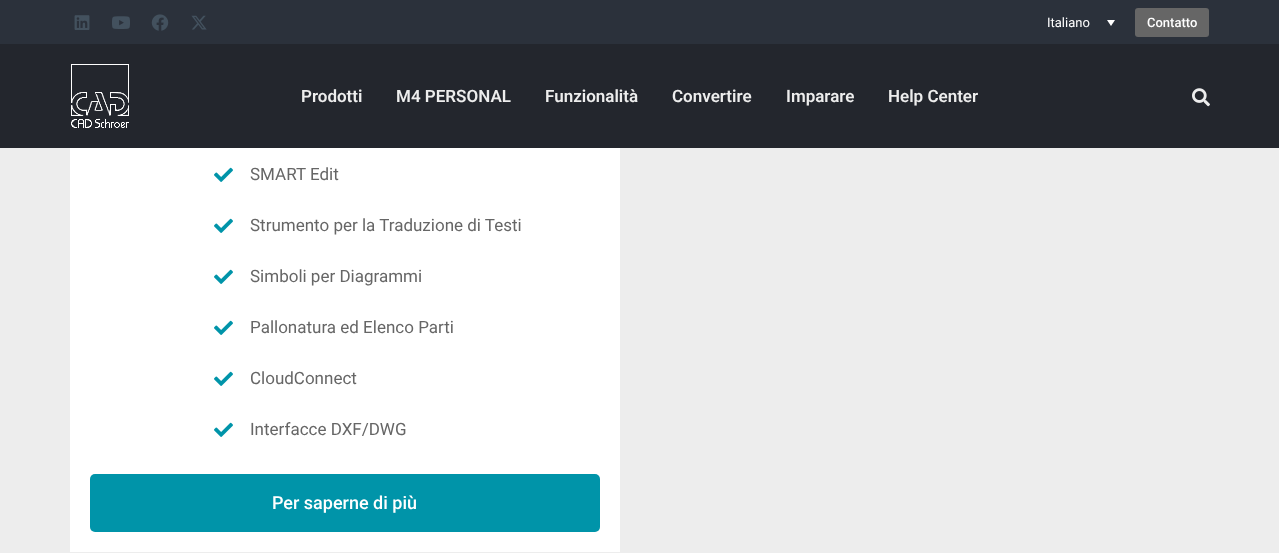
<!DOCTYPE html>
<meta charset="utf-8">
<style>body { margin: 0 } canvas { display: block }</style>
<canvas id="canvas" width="1279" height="553"></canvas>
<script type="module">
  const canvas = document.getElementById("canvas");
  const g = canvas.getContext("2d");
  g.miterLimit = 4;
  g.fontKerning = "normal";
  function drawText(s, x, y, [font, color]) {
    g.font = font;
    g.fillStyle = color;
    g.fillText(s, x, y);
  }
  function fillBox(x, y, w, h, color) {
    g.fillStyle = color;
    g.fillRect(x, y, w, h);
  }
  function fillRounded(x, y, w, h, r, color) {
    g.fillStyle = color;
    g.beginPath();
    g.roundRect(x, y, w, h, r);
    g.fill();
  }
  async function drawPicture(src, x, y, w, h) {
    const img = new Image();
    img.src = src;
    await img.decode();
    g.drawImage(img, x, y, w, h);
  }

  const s1 = ["13px Roboto", "#FFFFFF"];
  const s2 = ["500 13px Roboto", "#FFFFFF"];
  const s3 = ["600 17px Roboto", "#EDEDED"];
  const s4 = ["17px Roboto", "#666666"];
  const s5 = ["500 18px Roboto", "#FFFFFF"];

  fillBox(0, 0, 1279, 553, "#EDEDED");
  fillBox(0, 0, 1279, 44, "#2B313B");
  await drawPicture("pic1.png", 74, 15, 16, 15);
  await drawPicture("pic2.png", 112, 16, 18, 13);
  await drawPicture("pic3.png", 151, 14, 18, 17);
  await drawPicture("pic4.png", 191, 15, 16, 15);
  drawText("Italiano", 1047, 27, s1);
  g.beginPath();
  g.moveTo(1107, 20);
  g.lineTo(1115, 20);
  g.lineTo(1111, 26);
  g.closePath();
  g.fill();
  fillRounded(1135, 8, 74, 29, 3, "#666666");
  drawText("Contatto", 1147, 27, s2);
  fillBox(0, 44, 1279, 104, "#23262D");
  await drawPicture("pic5.png", 71, 64, 58, 64);
  drawText("Prodotti", 301, 102, s3);
  drawText("M4 PERSONAL", 396, 102, s3);
  drawText("Funzionalità", 545, 102, s3);
  drawText("Convertire", 672, 102, s3);
  drawText("Imparare", 786, 102, s3);
  drawText("Help Center", 888, 102, s3);
  await drawPicture("pic6.png", 1192, 88, 18, 19);
  fillBox(70, 148, 550, 404, "#FFFFFF");
  await drawPicture("pic7.png", 214, 167, 19, 15);
  drawText("SMART Edit", 250, 180, s4);
  await drawPicture("pic7.png", 214, 218, 19, 15);
  drawText("Strumento per la Traduzione di Testi", 250, 231, s4);
  await drawPicture("pic7.png", 214, 269, 19, 15);
  drawText("Simboli per Diagrammi", 250, 282, s4);
  await drawPicture("pic7.png", 214, 320, 19, 15);
  drawText("Pallonatura ed Elenco Parti", 250, 333, s4);
  await drawPicture("pic7.png", 214, 371, 19, 15);
  drawText("CloudConnect", 250, 384, s4);
  await drawPicture("pic7.png", 214, 422, 19, 15);
  drawText("Interfacce DXF/DWG", 250, 435, s4);
  fillRounded(90, 474, 510, 58, 5, "#0094A9");
  drawText("Per saperne di più", 272, 509, s5);
</script>
